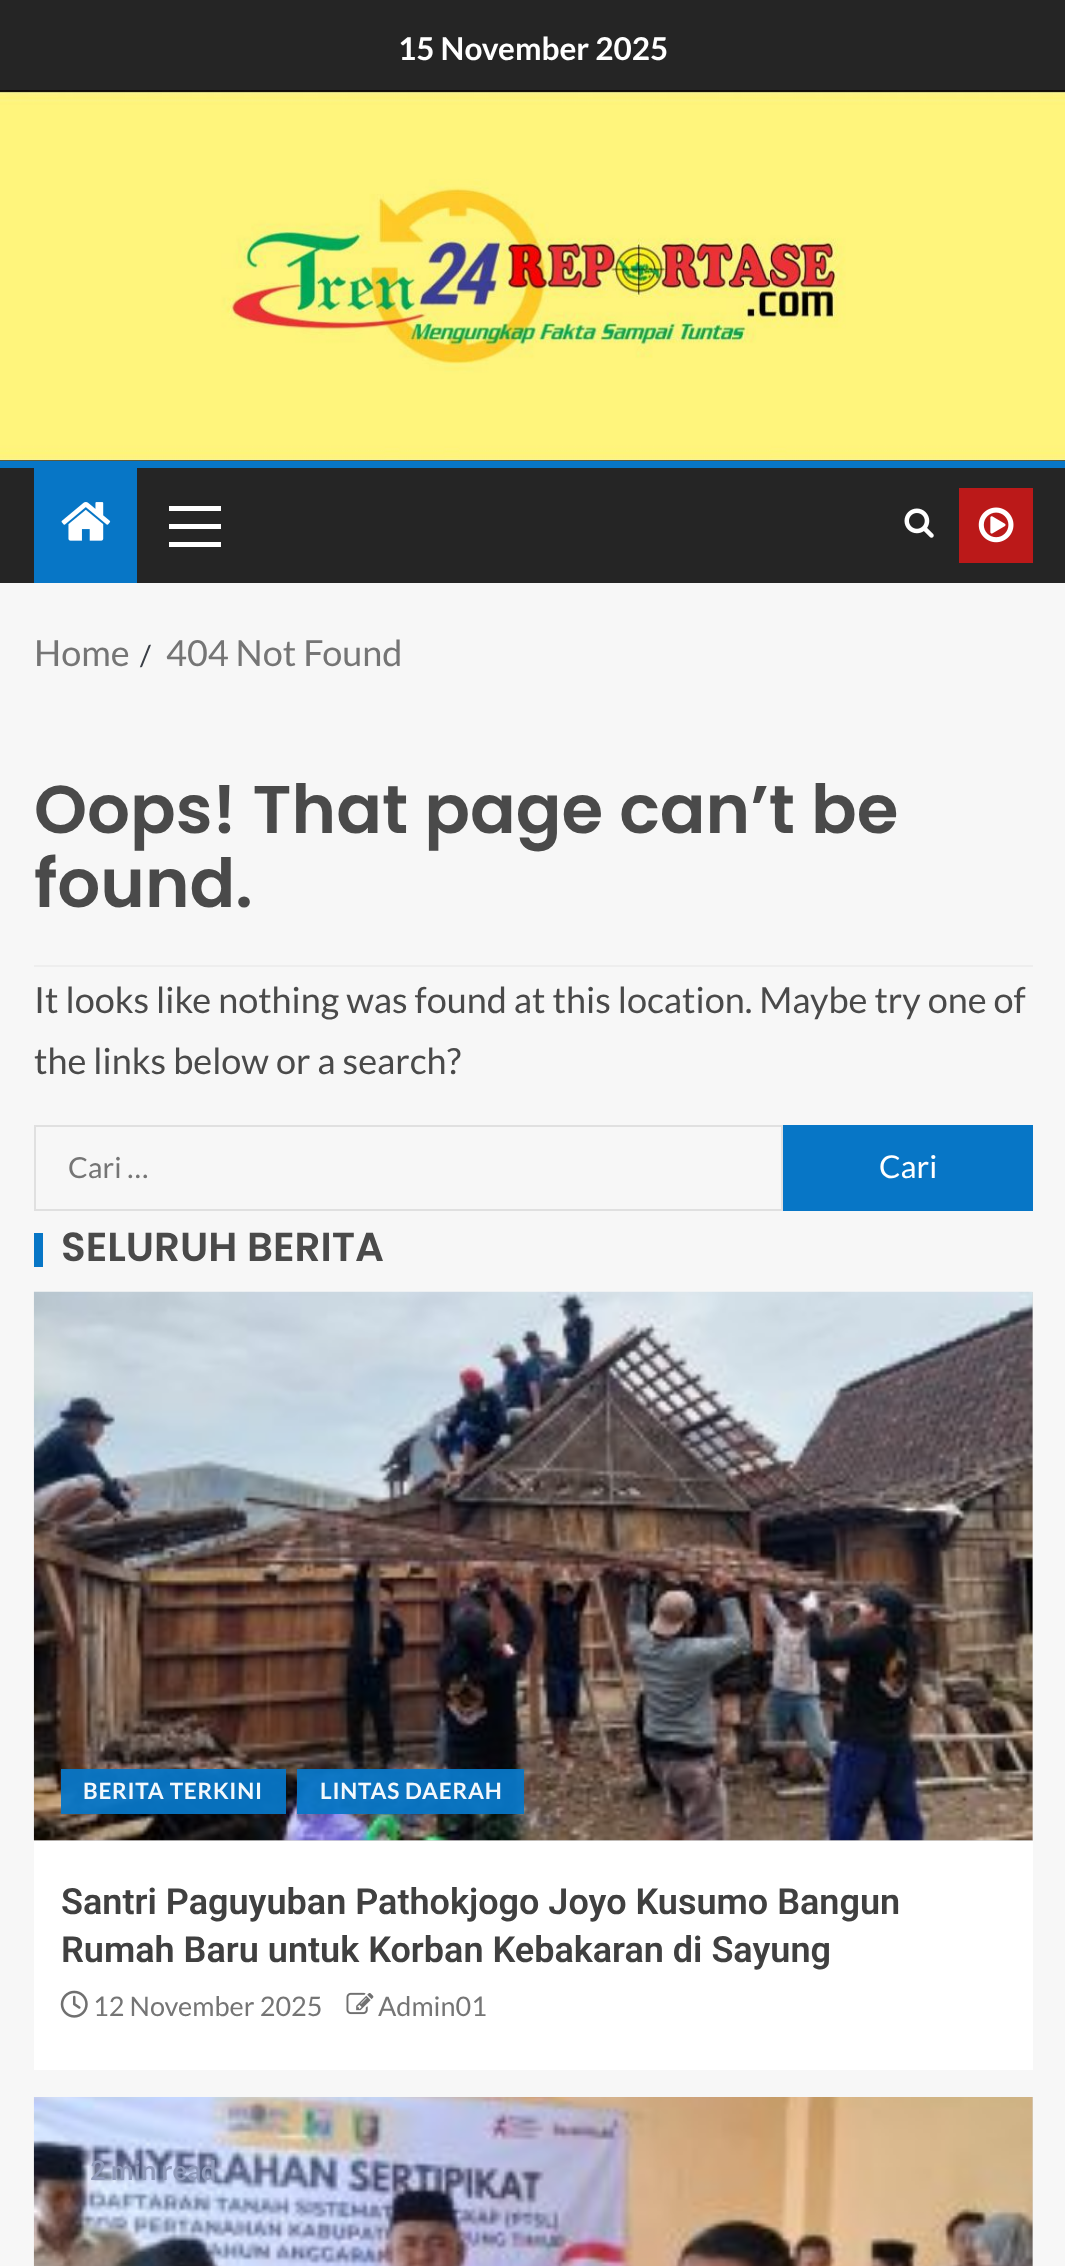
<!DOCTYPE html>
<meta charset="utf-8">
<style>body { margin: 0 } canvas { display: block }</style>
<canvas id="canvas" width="1065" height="2266"></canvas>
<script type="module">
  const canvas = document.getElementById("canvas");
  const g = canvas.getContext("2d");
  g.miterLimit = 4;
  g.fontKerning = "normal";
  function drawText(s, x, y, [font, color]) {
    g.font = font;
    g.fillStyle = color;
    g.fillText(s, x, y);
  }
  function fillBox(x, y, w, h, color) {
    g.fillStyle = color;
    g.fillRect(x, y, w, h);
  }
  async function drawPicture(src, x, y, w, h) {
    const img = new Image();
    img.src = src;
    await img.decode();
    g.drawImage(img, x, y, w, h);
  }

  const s1 = ["bold 31.5px Lato", "#FFFFFF"];
  const s2 = ["36px Lato", "#757575"];
  const s3 = ["29px Lato", "#393E46"];
  const s4 = ["600 67.5px Poppins", "#4A4A4A"];
  const s5 = ["36px Lato", "#4A4A4A"];
  const s6 = ["29px Lato", "#757575"];
  const s7 = ["31.5px Lato", "#FFFFFF"];
  const s8 = ["600 40.5px Poppins", "#4A4A4A"];
  const s9 = ["bold 22.5px Lato", "#F3F8FC"];
  const s10 = ["600 36px Roboto", "#404040"];
  const s11 = ["27px Lato", "#757575"];
  const s12 = ["bold 27px Lato", "#919BBA"];

  fillBox(0, 0, 1065, 2266, "#F7F7F7");
  fillBox(0, 0, 1065, 90, "#252525");
  drawText("15 November 2025", 398, 60, s1);
  await drawPicture("pic1.png", 0, 90, 1065, 371);
  fillBox(0, 468, 1065, 115, "#252525");
  fillBox(0, 461, 1065, 7, "#0776C6");
  fillBox(34, 468, 103, 115, "#0776C6");
  await drawPicture("pic2.png", 61, 502, 50, 39);
  fillBox(169, 524, 52, 5, "#FFFFFF");
  fillBox(169, 506, 52, 5, "#FFFFFF");
  fillBox(169, 542, 52, 5, "#FFFFFF");
  await drawPicture("pic3.png", 904, 508, 30, 30);
  fillBox(959, 488, 74, 75, "#BB1919");
  await drawPicture("pic4.png", 978, 507, 36, 36);
  drawText("Home", 34, 666, s2);
  drawText("/", 140, 666, s3);
  drawText("404 Not Found", 166, 666, s2);
  fillBox(34, 965, 999, 2, "#EEEEEE");
  drawText("Oops! That page can’t be", 34, 833, s4);
  drawText("found.", 34, 907, s4);
  drawText("It looks like nothing was found at this location. Maybe try one of", 34, 1013, s5);
  drawText("the links below or a search?", 34, 1074, s5);
  g.strokeStyle = "#E0E0E0";
  g.lineWidth = 2;
  g.strokeRect(35, 1126, 747, 84);
  drawText("Cari …", 68, 1178, s6);
  fillBox(783, 1125, 250, 86, "#0776C6");
  drawText("Cari", 879, 1178, s7);
  fillBox(34, 1233, 9, 34, "#0776C6");
  drawText("SELURUH BERITA", 61, 1261, s8);
  fillBox(34, 1292, 999, 549, "#DADADA");
  await drawPicture("pic5.png", 33, 1291, 1000, 550);
  fillBox(61, 1769, 225, 45, "rgba(7, 118, 198, 0.95)");
  g.letterSpacing = "0.75px";
  drawText("BERITA TERKINI", 83, 1799, s9);
  fillBox(297, 1769, 227, 45, "rgba(7, 118, 198, 0.95)");
  drawText("LINTAS DAERAH", 320, 1799, s9);
  fillBox(34, 1841, 999, 229, "#FFFFFF");
  g.letterSpacing = "0px";
  drawText("Santri Paguyuban Pathokjogo Joyo Kusumo Bangun", 61, 1914, s10);
  drawText("Rumah Baru untuk Korban Kebakaran di Sayung", 61, 1962, s10);
  await drawPicture("pic6.png", 60, 1990, 28, 28);
  drawText("12 November 2025", 93, 2016, s11);
  await drawPicture("pic7.png", 346, 1992, 28, 23);
  drawText("Admin01", 378, 2016, s11);
  fillBox(1032, 2097, 1, 169, "#DADADA");
  await drawPicture("pic8.png", 33, 2097, 1000, 169);
  drawText("2 min read", 90, 2180, s12);
</script>
